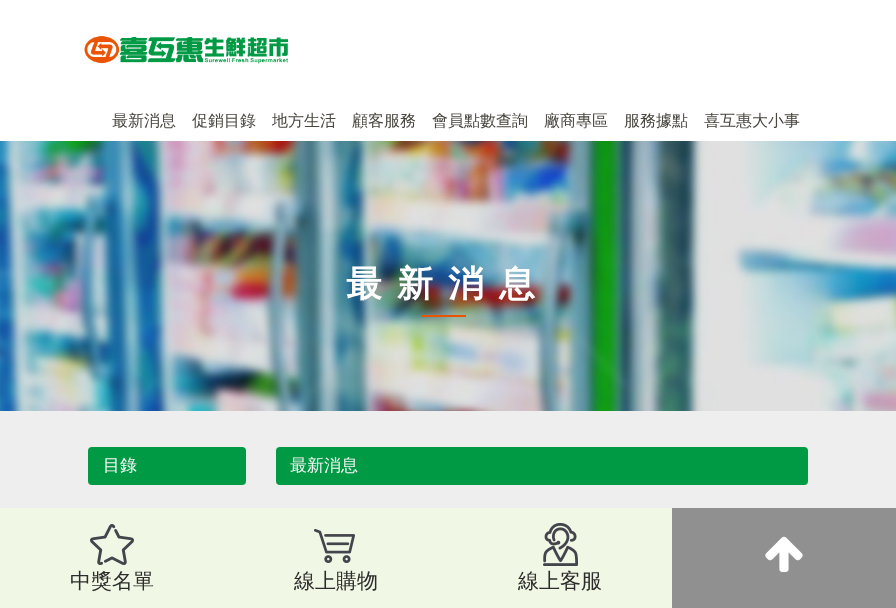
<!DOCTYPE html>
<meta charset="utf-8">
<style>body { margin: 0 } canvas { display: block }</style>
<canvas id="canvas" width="896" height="608"></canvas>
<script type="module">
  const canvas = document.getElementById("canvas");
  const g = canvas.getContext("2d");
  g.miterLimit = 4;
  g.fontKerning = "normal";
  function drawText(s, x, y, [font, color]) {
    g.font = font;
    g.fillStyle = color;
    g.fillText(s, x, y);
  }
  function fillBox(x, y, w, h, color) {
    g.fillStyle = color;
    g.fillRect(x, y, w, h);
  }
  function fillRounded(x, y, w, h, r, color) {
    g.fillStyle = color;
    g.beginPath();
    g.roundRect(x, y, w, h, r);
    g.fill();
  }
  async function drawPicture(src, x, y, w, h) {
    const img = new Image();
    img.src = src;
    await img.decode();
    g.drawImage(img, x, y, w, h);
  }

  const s1 = ["500 16px WenQuanYi Zen Hei", "#48463F"];
  const s2 = ["bold 36px WenQuanYi Zen Hei", "#FFFFFF"];
  const s3 = ["500 17px WenQuanYi Zen Hei", "#F8F8F8"];
  const s4 = ["500 21px WenQuanYi Zen Hei", "#2C2C2C"];

  fillBox(0, 0, 896, 608, "#FFFFFF");
  await drawPicture("pic1.png", 84, 36, 205, 28);
  drawText("最新消息", 112, 126, s1);
  drawText("促銷目錄", 192, 126, s1);
  drawText("地方生活", 272, 126, s1);
  drawText("顧客服務", 352, 126, s1);
  drawText("會員點數查詢", 432, 126, s1);
  drawText("廠商專區", 544, 126, s1);
  drawText("服務據點", 624, 126, s1);
  drawText("喜互惠大小事", 704, 126, s1);
  await drawPicture("pic2.png", 0, 141, 896, 270);
  g.letterSpacing = "15px";
  drawText("最新消息", 346, 296, s2);
  fillBox(421, 315, 45, 2, "#EA5404");
  fillBox(0, 411, 896, 97, "#EEEEEE");
  fillRounded(88, 447, 158, 38, 4, "#009944");
  g.letterSpacing = "0px";
  drawText("目錄", 103, 471, s3);
  fillRounded(276, 447, 532, 38, 4, "#009944");
  drawText("最新消息", 290, 471, s3);
  fillBox(0, 508, 672, 100, "#F0F7E4");
  await drawPicture("pic3.png", 90, 524, 44, 41);
  drawText("中獎名單", 70, 588, s4);
  await drawPicture("pic4.png", 314, 529, 41, 34);
  drawText("線上購物", 294, 588, s4);
  await drawPicture("pic5.png", 543, 523, 35, 43);
  drawText("線上客服", 518, 588, s4);
  fillBox(672, 508, 224, 100, "#909090");
  await drawPicture("pic6.png", 765, 536, 38, 37);
</script>
